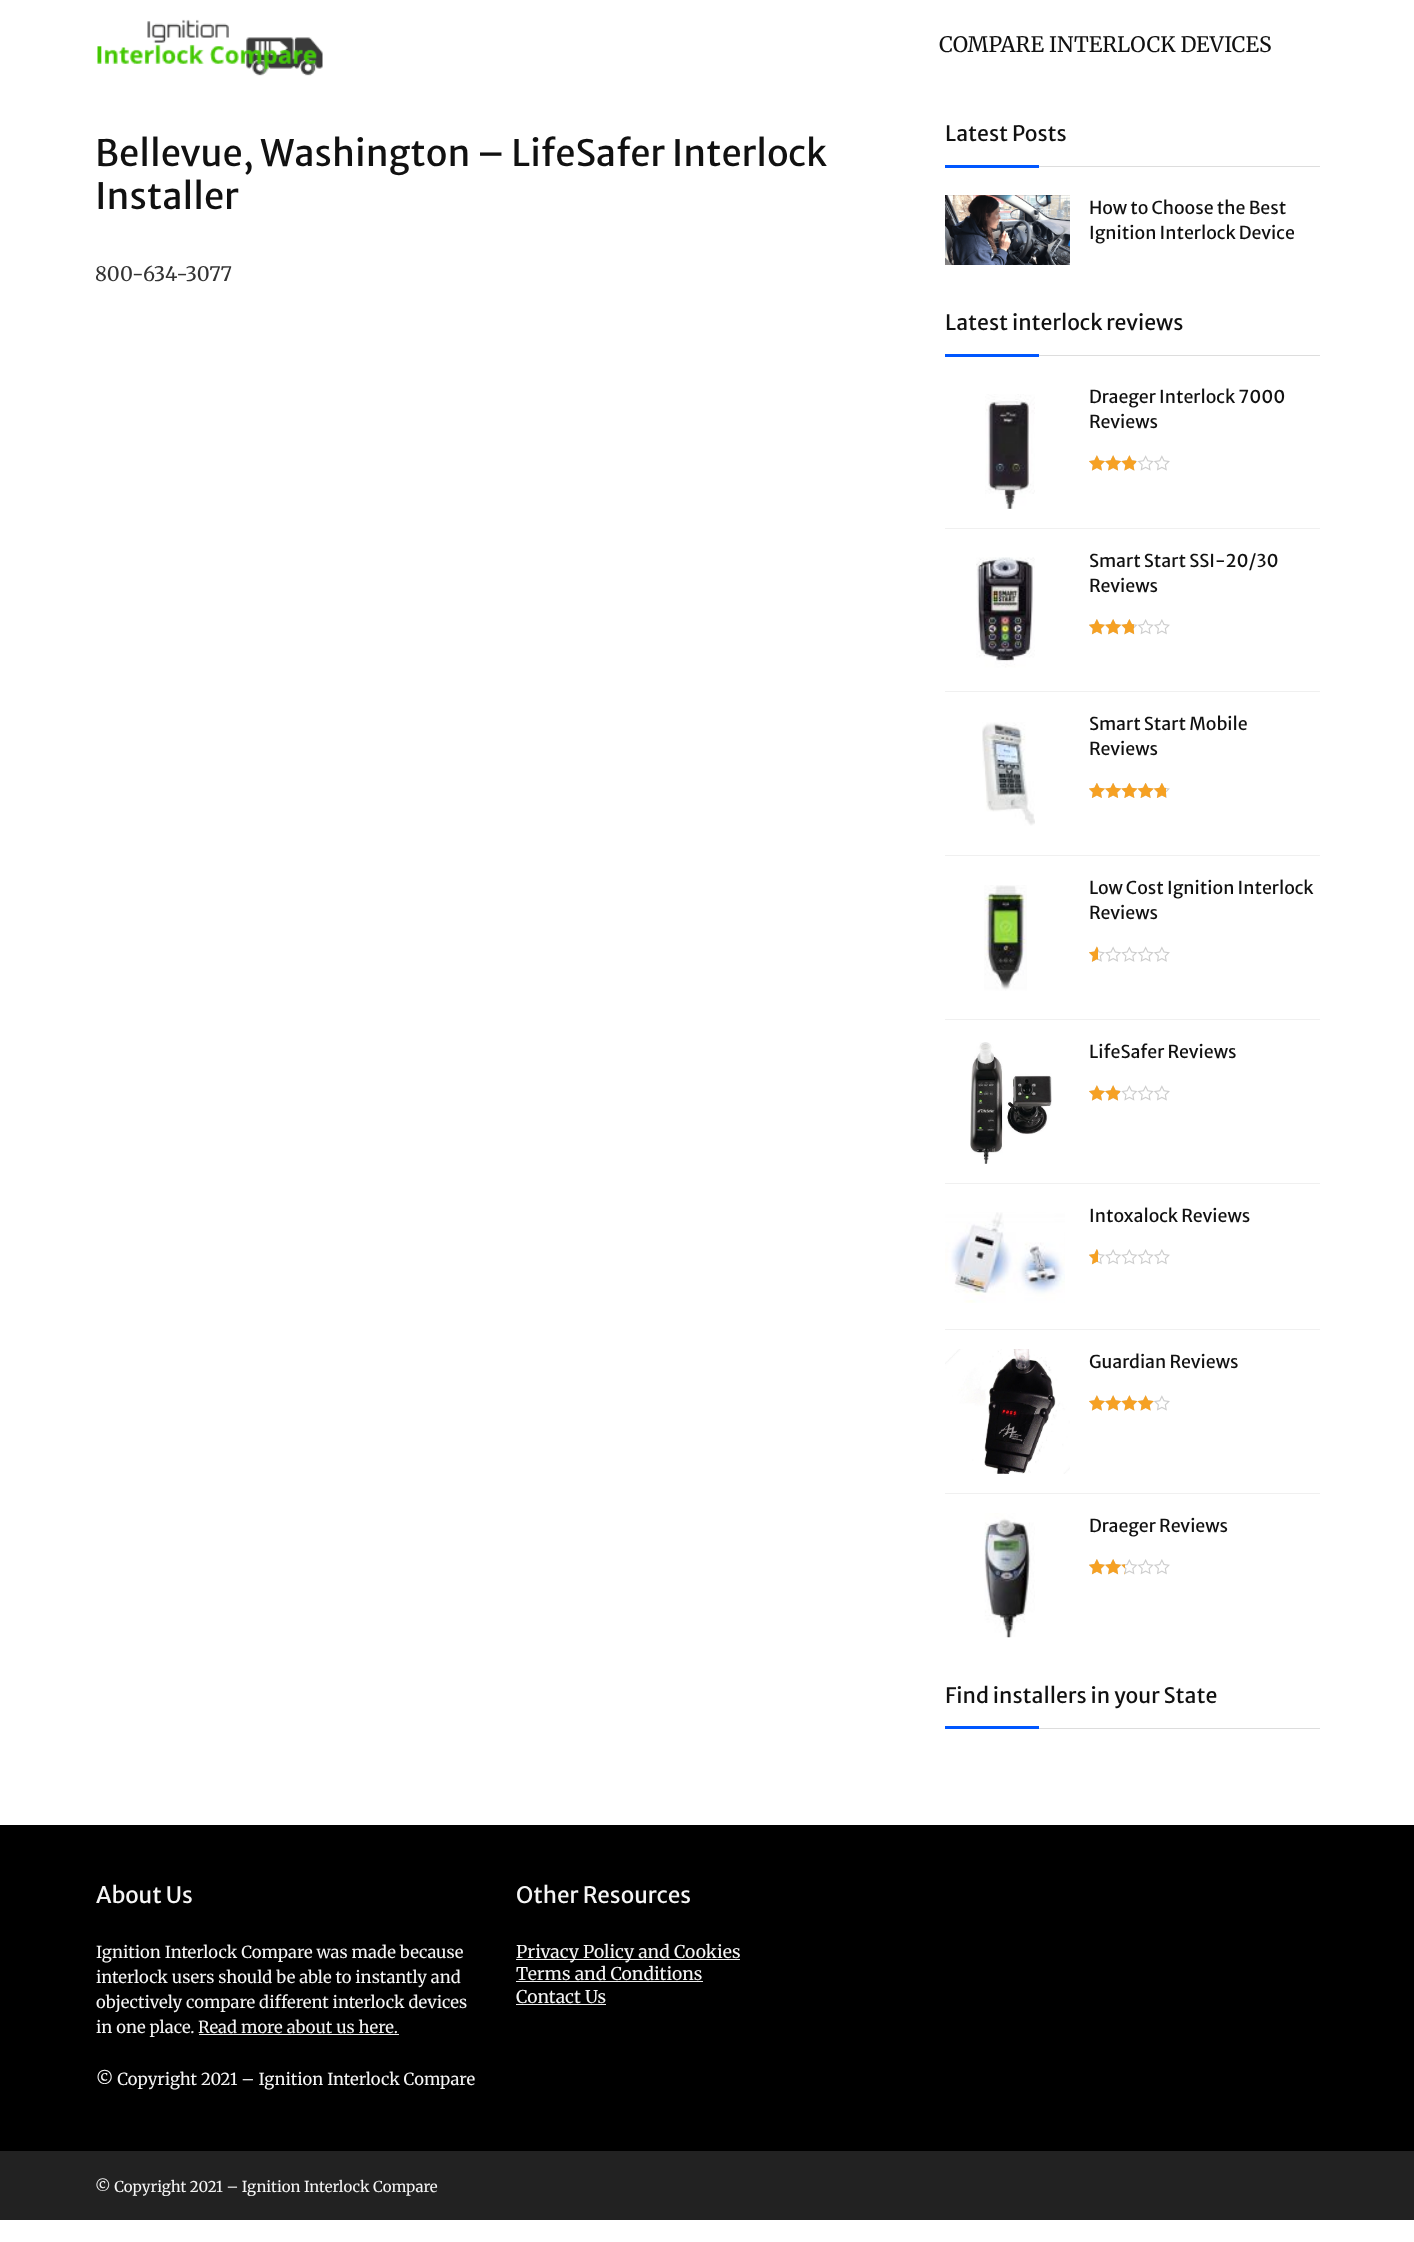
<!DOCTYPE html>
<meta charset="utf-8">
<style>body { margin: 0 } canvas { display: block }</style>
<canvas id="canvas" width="1414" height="2242"></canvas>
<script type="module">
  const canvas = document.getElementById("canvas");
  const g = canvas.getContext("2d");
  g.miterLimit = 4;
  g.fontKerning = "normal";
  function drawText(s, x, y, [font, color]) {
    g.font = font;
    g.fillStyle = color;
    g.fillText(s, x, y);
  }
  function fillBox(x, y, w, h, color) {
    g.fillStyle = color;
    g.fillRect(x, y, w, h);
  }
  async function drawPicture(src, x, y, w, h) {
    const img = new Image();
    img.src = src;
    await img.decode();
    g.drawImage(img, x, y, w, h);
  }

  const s1 = ["300 21.25px Merriweather", "#111111"];
  const s2 = ["36.25px Merriweather Sans", "#111111"];
  const s3 = ["300 20px Merriweather", "#333333"];
  const s4 = ["21.25px Merriweather Sans", "#111111"];
  const s5 = ["17.75px Merriweather Sans", "#111111"];
  const s6 = ["22.5px Merriweather Sans", "#F5F5F5"];
  const s7 = ["300 16.6px Merriweather", "#F5F5F5"];
  const s8 = ["300 17.5px Merriweather", "#F5F5F5"];
  const s9 = ["300 15px Merriweather", "#F5F5F5"];

  fillBox(0, 0, 1414, 2242, "#FFFFFF");
  await drawPicture("pic1.png", 97, 19, 226, 57);
  drawText("COMPARE INTERLOCK DEVICES", 939, 52, s1);
  drawText("Bellevue, Washington – LifeSafer Interlock", 95, 166, s2);
  drawText("Installer", 95, 209, s2);
  drawText("800-634-3077", 95, 281, s3);
  fillBox(1039, 166, 281, 1, "#DDDDDD");
  drawText("Latest Posts", 945, 141, s4);
  fillBox(945, 165, 94, 3, "#0057FF");
  await drawPicture("pic2.png", 945, 195, 125, 70);
  drawText("How to Choose the Best", 1089, 214, s5);
  drawText("Ignition Interlock Device", 1089, 239, s5);
  fillBox(1039, 355, 281, 1, "#DDDDDD");
  drawText("Latest interlock reviews", 945, 330, s4);
  fillBox(945, 354, 94, 3, "#0057FF");
  fillBox(945, 528, 375, 1, "#F0F0F0");
  await drawPicture("pic3.png", 985, 394, 50, 115);
  drawText("Draeger Interlock 7000", 1089, 403, s5);
  drawText("Reviews", 1089, 428, s5);
  await drawPicture("pic4.png", 1089, 455, 81, 16);
  await drawPicture("pic5.png", 1089, 455, 47, 16);
  fillBox(945, 691, 375, 1, "#F0F0F0");
  await drawPicture("pic6.png", 976, 557, 59, 111);
  drawText("Smart Start SSI-20/30", 1089, 567, s5);
  drawText("Reviews", 1089, 592, s5);
  await drawPicture("pic7.png", 1089, 619, 81, 16);
  await drawPicture("pic8.png", 1089, 619, 45, 16);
  fillBox(945, 855, 375, 1, "#F0F0F0");
  await drawPicture("pic9.png", 982, 722, 53, 104);
  drawText("Smart Start Mobile", 1089, 730, s5);
  drawText("Reviews", 1089, 755, s5);
  await drawPicture("pic10.png", 1089, 783, 81, 15);
  await drawPicture("pic11.png", 1089, 783, 77, 15);
  fillBox(945, 1019, 375, 1, "#F0F0F0");
  await drawPicture("pic12.png", 984, 885, 43, 106);
  drawText("Low Cost Ignition Interlock", 1089, 894, s5);
  drawText("Reviews", 1089, 919, s5);
  await drawPicture("pic13.png", 1089, 946, 81, 16);
  await drawPicture("pic14.png", 1089, 946, 9, 16);
  fillBox(945, 1183, 375, 1, "#F0F0F0");
  await drawPicture("pic15.png", 970, 1042, 82, 122);
  drawText("LifeSafer Reviews", 1089, 1058, s5);
  await drawPicture("pic4.png", 1089, 1085, 81, 16);
  await drawPicture("pic16.png", 1089, 1085, 31, 16);
  fillBox(945, 1329, 375, 1, "#F0F0F0");
  await drawPicture("pic17.png", 945, 1212, 120, 91);
  drawText("Intoxalock Reviews", 1089, 1222, s5);
  await drawPicture("pic7.png", 1089, 1249, 81, 16);
  await drawPicture("pic18.png", 1089, 1249, 9, 16);
  fillBox(945, 1493, 375, 1, "#F0F0F0");
  await drawPicture("pic19.png", 945, 1349, 125, 125);
  drawText("Guardian Reviews", 1089, 1368, s5);
  await drawPicture("pic4.png", 1089, 1395, 81, 16);
  await drawPicture("pic20.png", 1089, 1395, 65, 16);
  await drawPicture("pic21.png", 984, 1513, 51, 125);
  drawText("Draeger Reviews", 1089, 1532, s5);
  await drawPicture("pic7.png", 1089, 1559, 81, 16);
  await drawPicture("pic22.png", 1089, 1559, 36, 16);
  fillBox(1039, 1728, 281, 1, "#DDDDDD");
  drawText("Find installers in your State", 945, 1703, s4);
  fillBox(945, 1726, 94, 3, "#0057FF");
  fillBox(0, 1825, 1414, 326, "#000000");
  drawText("About Us", 96, 1903, s6);
  drawText("Ignition Interlock Compare was made because", 96, 1958, s7);
  drawText("interlock users should be able to instantly and", 96, 1983, s7);
  drawText("objectively compare different interlock devices", 96, 2008, s7);
  drawText("in one place.", 96, 2033, s7);
  drawText("Read more about us here.", 198, 2033, s7);
  fillBox(199, 2034, 200, 1, "#F1F1F1");
  drawText("© Copyright 2021 – Ignition Interlock Compare", 96, 2085, s7);
  drawText("Other Resources", 516, 1903, s6);
  fillBox(516, 1959, 224, 1, "#F1F1F1");
  drawText("Privacy Policy and Cookies", 516, 1958, s8);
  drawText("Terms and Conditions", 516, 1980, s8);
  fillBox(516, 1981, 187, 1, "#F1F1F1");
  drawText("Contact Us", 516, 2003, s8);
  fillBox(516, 2004, 90, 1, "#F1F1F1");
  fillBox(0, 2151, 1414, 69, "#222222");
  drawText("© Copyright 2021 – Ignition Interlock Compare", 95, 2192, s9);
</script>
